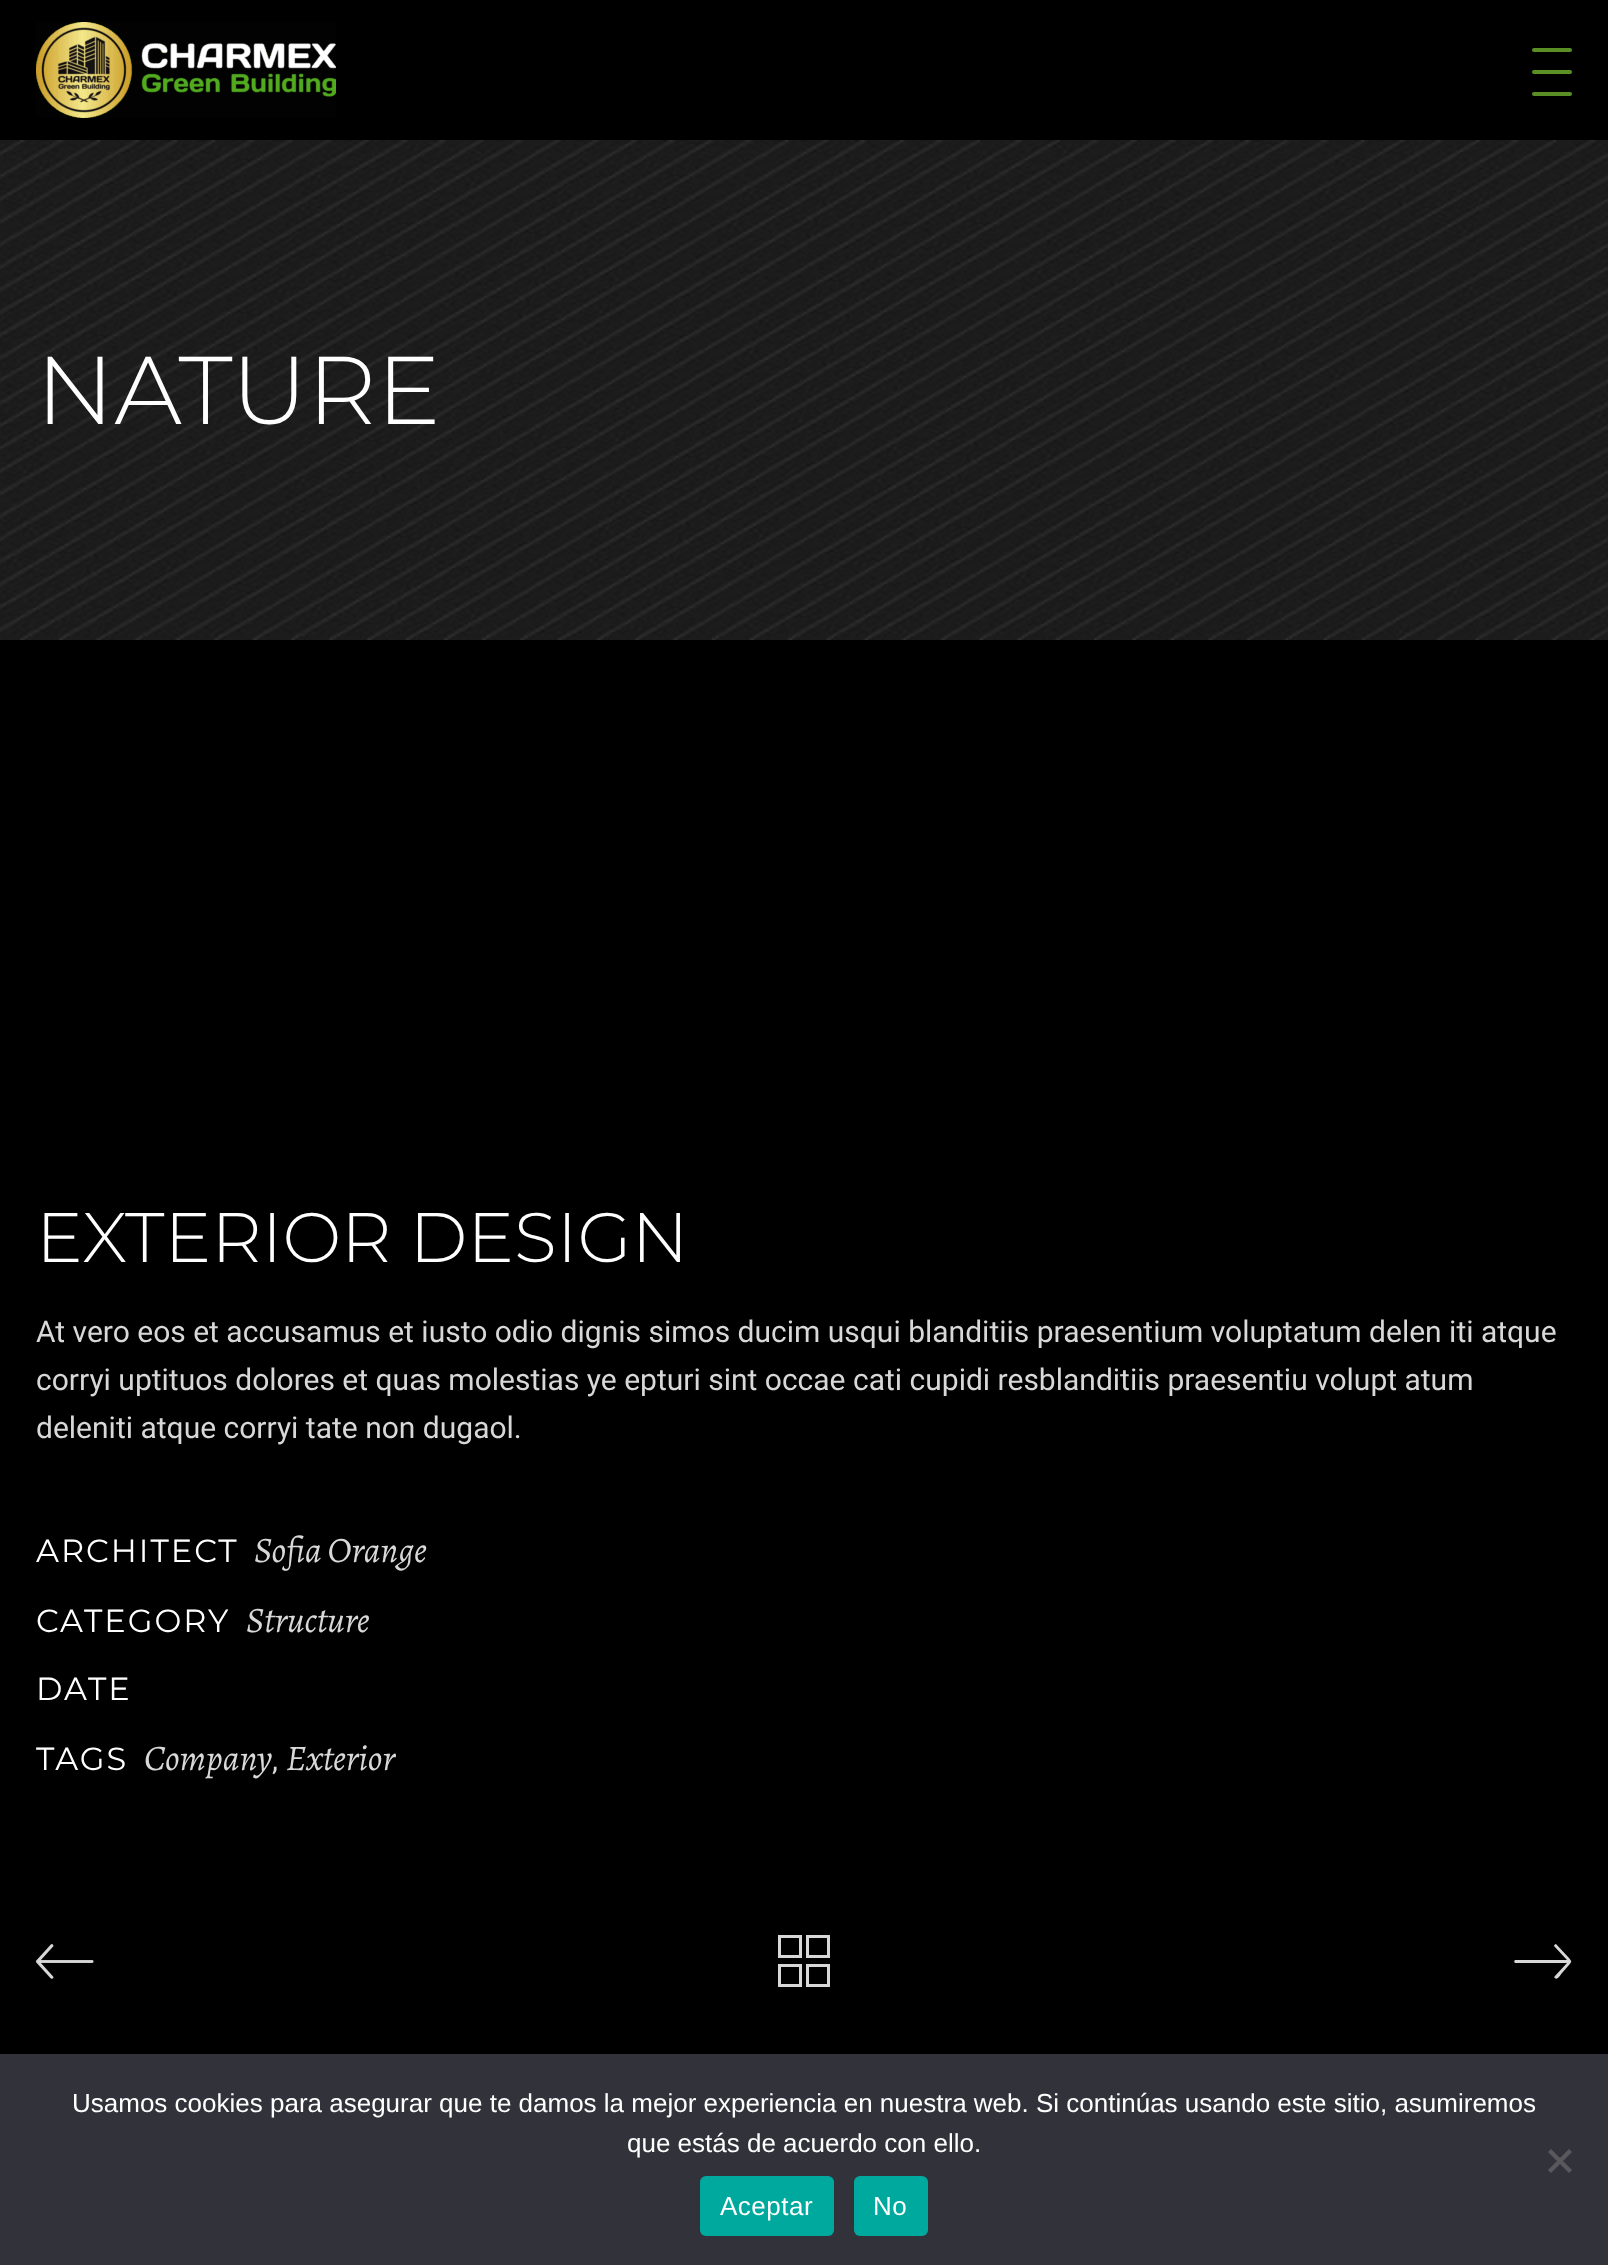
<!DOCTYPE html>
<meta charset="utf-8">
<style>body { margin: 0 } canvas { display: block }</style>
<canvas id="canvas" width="1608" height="2265"></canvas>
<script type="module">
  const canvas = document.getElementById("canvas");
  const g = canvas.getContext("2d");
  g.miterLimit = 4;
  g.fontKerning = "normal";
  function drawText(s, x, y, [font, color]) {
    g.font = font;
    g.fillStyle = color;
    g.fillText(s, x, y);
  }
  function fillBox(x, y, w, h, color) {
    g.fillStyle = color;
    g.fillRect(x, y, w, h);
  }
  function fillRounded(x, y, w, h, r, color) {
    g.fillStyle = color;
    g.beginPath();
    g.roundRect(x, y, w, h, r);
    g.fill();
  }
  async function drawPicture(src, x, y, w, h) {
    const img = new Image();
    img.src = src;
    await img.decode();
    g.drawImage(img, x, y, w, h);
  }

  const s1 = ["300 96px Montserrat", "#FFFFFF"];
  const s2 = ["300 70px Montserrat", "#FFFFFF"];
  const s3 = ["30px Roboto", "#D8D8D8"];
  const s4 = ["32px Montserrat", "#FFFFFF"];
  const s5 = ["italic 36px Alegreya", "#D8D8D8"];
  const s6 = ["26px Liberation Sans", "#FFFFFF"];

  fillBox(0, 0, 1608, 2265, "#000000");
  await drawPicture("pic1.png", 36, 22, 300, 96);
  fillRounded(1532, 48, 40, 4, 2, "#5A8F25");
  fillRounded(1532, 70, 40, 4, 2, "#5A8F25");
  fillRounded(1532, 92, 40, 4, 2, "#5A8F25");
  await drawPicture("pic2.png", 0, 140, 1608, 500);
  drawText("NATURE", 36, 424, s1);
  drawText("EXTERIOR DESIGN", 36, 1262, s2);
  drawText("At vero eos et accusamus et iusto odio dignis simos ducim usqui blanditiis praesentium voluptatum delen iti atque", 36, 1342, s3);
  drawText("corryi uptituos dolores et quas molestias ye epturi sint occae cati cupidi resblanditiis praesentiu volupt atum", 36, 1390, s3);
  drawText("deleniti atque corryi tate non dugaol.", 36, 1438, s3);
  g.letterSpacing = "2px";
  drawText("ARCHITECT", 36, 1562, s4);
  g.letterSpacing = "0px";
  drawText("Sofia Orange", 254, 1562, s5);
  g.letterSpacing = "2px";
  drawText("CATEGORY", 36, 1632, s4);
  g.letterSpacing = "0px";
  drawText("Structure", 246, 1632, s5);
  g.letterSpacing = "2px";
  drawText("DATE", 36, 1700, s4);
  drawText("TAGS", 36, 1770, s4);
  g.letterSpacing = "0px";
  drawText("Company", 144, 1770, s5);
  drawText(",", 272, 1770, s3);
  drawText("Exterior", 286, 1770, s5);
  await drawPicture("pic3.png", 36, 1944, 58, 35);
  g.strokeStyle = "#D8D8D8";
  g.lineWidth = 3;
  g.strokeRect(779.5, 1936.5, 21, 20);
  g.strokeRect(807.5, 1936.5, 21, 20);
  g.strokeRect(779.5, 1965.5, 21, 20);
  g.strokeRect(807.5, 1965.5, 21, 20);
  g.beginPath();
  g.moveTo(1555, 1978);
  g.bezierCurveTo(1554, 1978, 1554, 1977, 1555, 1976);
  g.lineTo(1567, 1963);
  g.lineTo(1515, 1963);
  g.bezierCurveTo(1514, 1962, 1514, 1961, 1515, 1960);
  g.lineTo(1567, 1960);
  g.lineTo(1554, 1946);
  g.bezierCurveTo(1554, 1945, 1555, 1944, 1556, 1944);
  g.lineTo(1569, 1958);
  g.bezierCurveTo(1572, 1962, 1572, 1961, 1569, 1965);
  g.lineTo(1562, 1973);
  g.bezierCurveTo(1561, 1974, 1557, 1981, 1555, 1978);
  g.closePath();
  g.fill();
  fillBox(0, 2054, 1608, 211, "#32323A");
  drawText("Usamos cookies para asegurar que te damos la mejor experiencia en nuestra web. Si continúas usando este sitio, asumiremos", 72, 2112, s6);
  drawText("que estás de acuerdo con ello.", 627, 2152, s6);
  g.fillStyle = "#59595D";
  g.beginPath();
  g.moveTo(1569, 2149);
  g.lineTo(1572, 2152);
  g.lineTo(1551, 2173);
  g.lineTo(1548, 2170);
  g.closePath();
  g.fill();
  g.beginPath();
  g.moveTo(1548, 2152);
  g.lineTo(1551, 2149);
  g.lineTo(1572, 2170);
  g.lineTo(1569, 2173);
  g.closePath();
  g.fill();
  fillRounded(700, 2176, 134, 60, 6, "#00A99D");
  g.letterSpacing = "0.5px";
  drawText("Aceptar", 720, 2215, s6);
  fillRounded(854, 2176, 74, 60, 6, "#00A99D");
  drawText("No", 873, 2215, s6);
</script>
